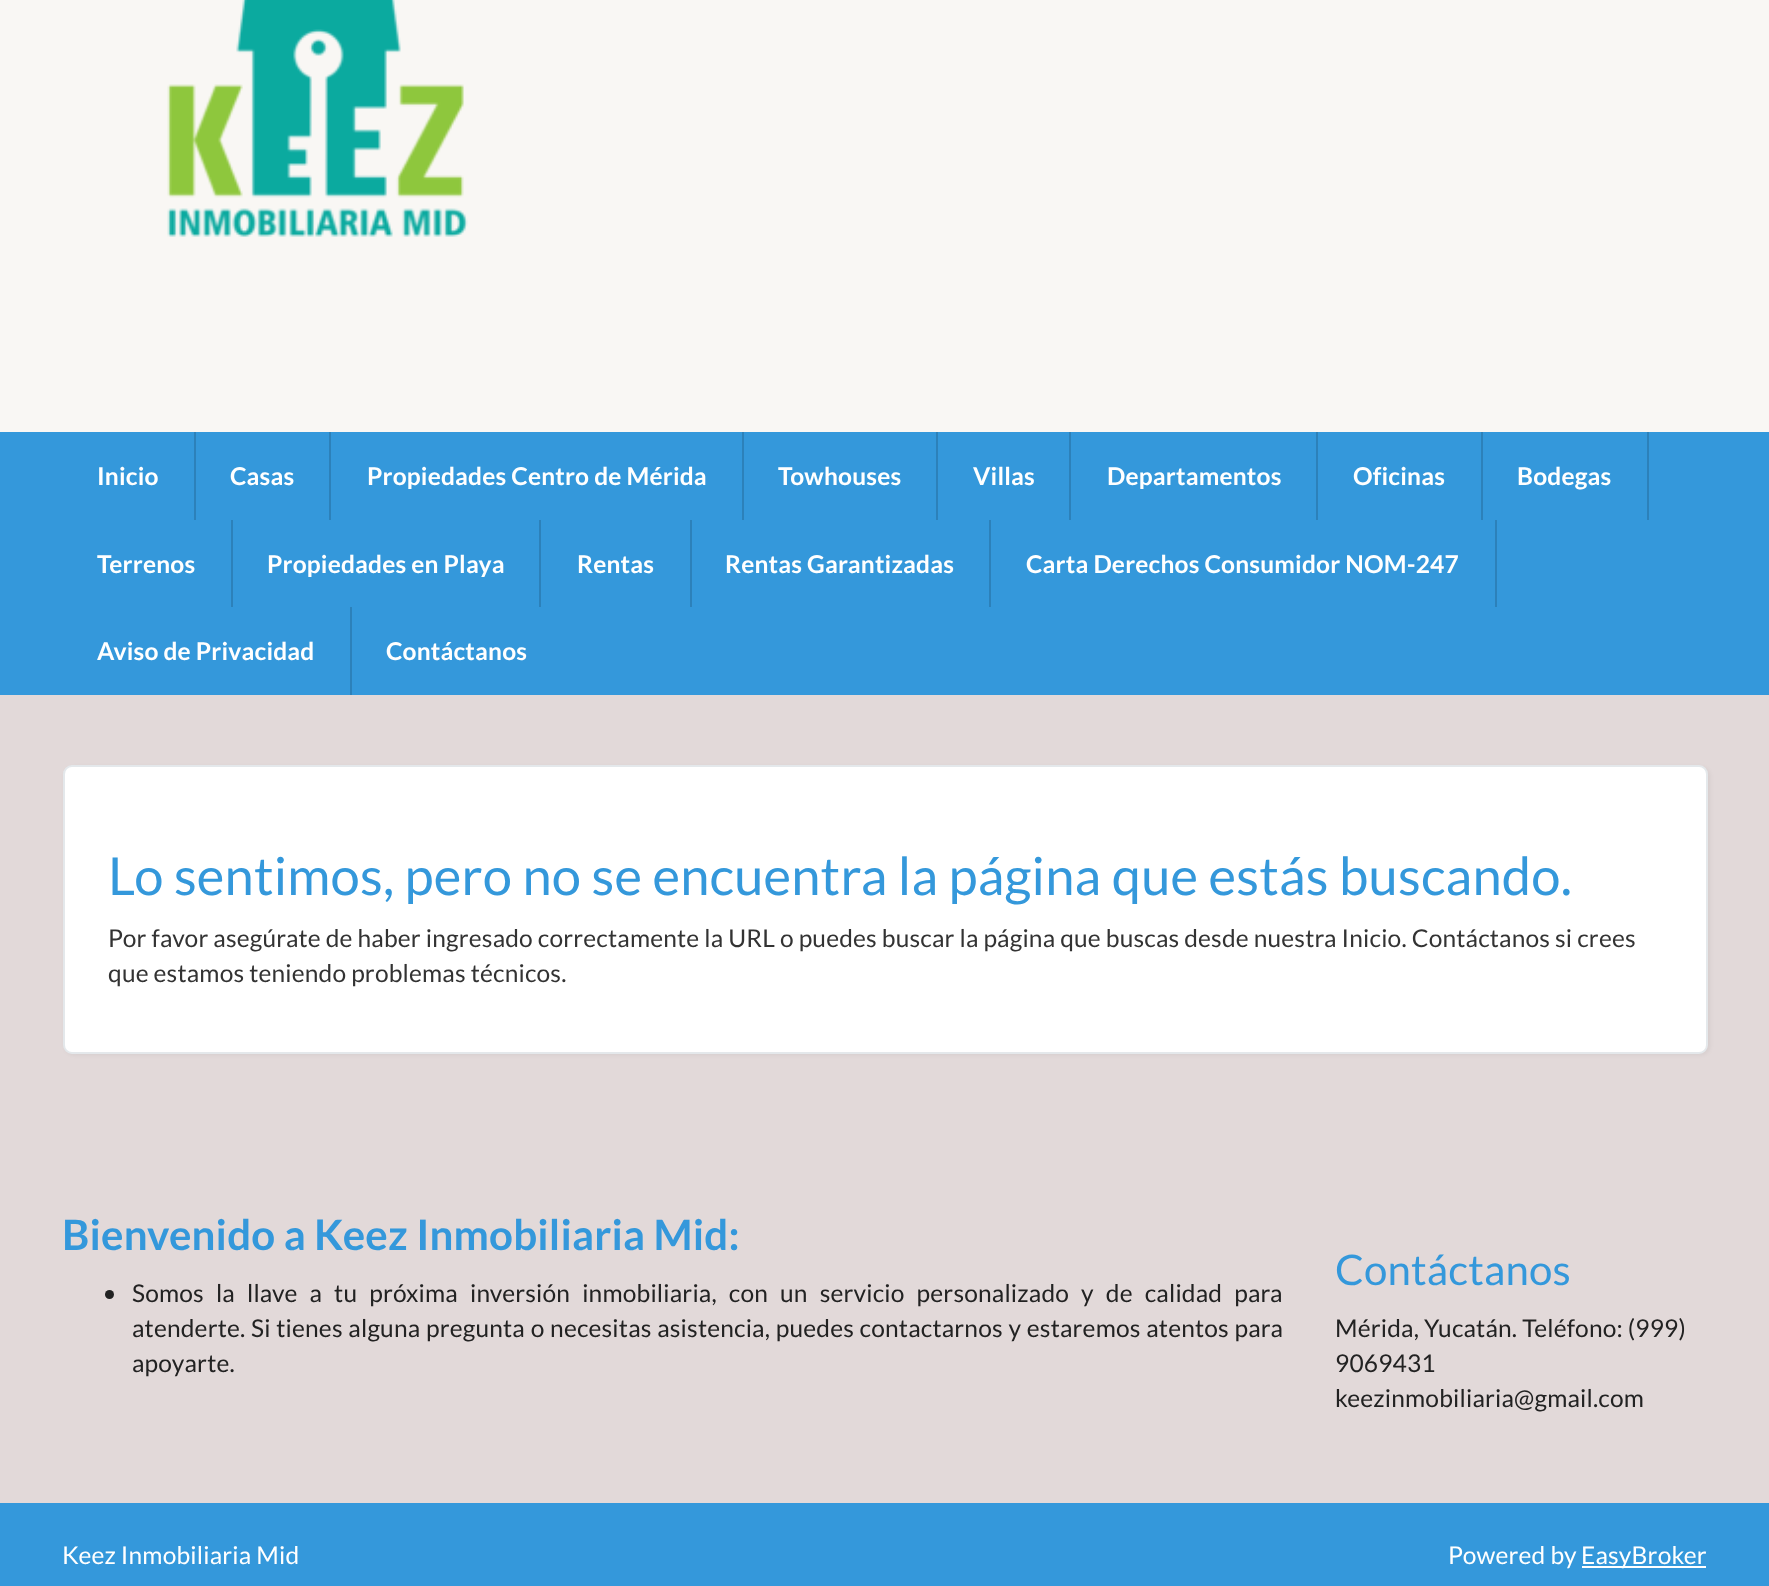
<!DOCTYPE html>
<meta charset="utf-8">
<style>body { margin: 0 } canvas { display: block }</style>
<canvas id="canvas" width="1769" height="1586"></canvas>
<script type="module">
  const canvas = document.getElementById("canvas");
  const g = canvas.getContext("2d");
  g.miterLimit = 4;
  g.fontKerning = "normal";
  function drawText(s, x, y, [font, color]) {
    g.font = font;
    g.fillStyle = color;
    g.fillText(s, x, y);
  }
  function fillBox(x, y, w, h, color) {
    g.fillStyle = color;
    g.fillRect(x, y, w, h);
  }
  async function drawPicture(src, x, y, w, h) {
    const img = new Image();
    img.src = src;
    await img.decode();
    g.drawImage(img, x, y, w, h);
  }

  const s1 = ["bold 24.5px Lato", "#FFFFFF"];
  const s2 = ["52.5px Lato", "#3498DB"];
  const s3 = ["24.5px Lato", "#333333"];
  const s4 = ["bold 42px Lato", "#3498DB"];
  const s5 = ["24.5px Lato", "#222222"];
  const s6 = ["42px Lato", "#3498DB"];
  const s7 = ["24.5px Lato", "#FFFFFF"];

  fillBox(0, 0, 1769, 1586, "#E2D9D9");
  fillBox(0, 0, 1769, 432, "#F9F7F4");
  await drawPicture("pic1.png", 167, 0, 301, 237);
  fillBox(0, 432, 1769, 263, "#3498DB");
  fillBox(194, 432, 2, 88, "#2C81BA");
  g.letterSpacing = "0.18px";
  drawText("Inicio", 97, 485, s1);
  fillBox(329, 432, 2, 88, "#2C81BA");
  drawText("Casas", 230, 485, s1);
  fillBox(742, 432, 2, 88, "#2C81BA");
  drawText("Propiedades Centro de Mérida", 367, 485, s1);
  fillBox(936, 432, 2, 88, "#2C81BA");
  drawText("Towhouses", 778, 485, s1);
  fillBox(1069, 432, 2, 88, "#2C81BA");
  drawText("Villas", 973, 485, s1);
  fillBox(1316, 432, 2, 88, "#2C81BA");
  drawText("Departamentos", 1107, 485, s1);
  fillBox(1481, 432, 2, 88, "#2C81BA");
  drawText("Oficinas", 1353, 485, s1);
  fillBox(1647, 432, 2, 88, "#2C81BA");
  drawText("Bodegas", 1517, 485, s1);
  fillBox(231, 520, 2, 87, "#2C81BA");
  drawText("Terrenos", 97, 573, s1);
  fillBox(539, 520, 2, 87, "#2C81BA");
  drawText("Propiedades en Playa", 267, 573, s1);
  fillBox(690, 520, 2, 87, "#2C81BA");
  drawText("Rentas", 577, 573, s1);
  fillBox(989, 520, 2, 87, "#2C81BA");
  drawText("Rentas Garantizadas", 725, 573, s1);
  fillBox(1495, 520, 2, 87, "#2C81BA");
  drawText("Carta Derechos Consumidor NOM-247", 1026, 573, s1);
  fillBox(350, 607, 2, 88, "#2C81BA");
  drawText("Aviso de Privacidad", 97, 660, s1);
  drawText("Contáctanos", 386, 660, s1);
  g.fillStyle = "rgba(0, 0, 0, 0.05)";
  g.filter = "blur(2px)";
  g.beginPath();
  g.roundRect(65, 767, 1645, 288, 9);
  g.fill();
  g.filter = "none";
  g.fillStyle = "#FFFFFF";
  g.beginPath();
  g.roundRect(64, 766, 1643, 287, 8);
  g.fill();
  g.strokeStyle = "#E4E8EB";
  g.lineWidth = 2;
  g.stroke();
  drawText("Lo sentimos, pero no se encuentra la página que estás buscando.", 108, 895, s2);
  drawText("Por favor asegúrate de haber ingresado correctamente la URL o puedes buscar la página que buscas desde nuestra Inicio. Contáctanos si crees", 108, 947, s3);
  drawText("que estamos teniendo problemas técnicos.", 108, 982, s3);
  drawText("Bienvenido a Keez Inmobiliaria Mid:", 62, 1250, s4);
  g.fillStyle = "#222222";
  g.beginPath();
  g.arc(109.5, 1294.5, 4.5, 0, Math.PI * 2);
  g.fill();
  g.wordSpacing = "7.1px";
  drawText("Somos la llave a tu próxima inversión inmobiliaria, con un servicio personalizado y de calidad para", 132, 1302, s5);
  g.wordSpacing = "0px";
  drawText("atenderte.", 132, 1337, s5);
  g.wordSpacing = "0.75px";
  drawText("Si tienes alguna pregunta o necesitas asistencia, puedes contactarnos y estaremos atentos para", 251, 1337, s5);
  g.wordSpacing = "0px";
  drawText("apoyarte.", 132, 1372, s5);
  drawText("Contáctanos", 1335, 1285, s6);
  drawText("Mérida, Yucatán. Teléfono: (999)", 1335, 1337, s5);
  drawText("9069431", 1335, 1372, s5);
  drawText("keezinmobiliaria@gmail.com", 1335, 1407, s5);
  fillBox(0, 1503, 1769, 83, "#3498DB");
  drawText("Keez Inmobiliaria Mid", 62, 1564, s7);
  drawText("Powered by", 1448, 1564, s7);
  fillBox(1582, 1566, 124, 2, "#FFFFFF");
  drawText("EasyBroker", 1581, 1564, s7);
</script>
